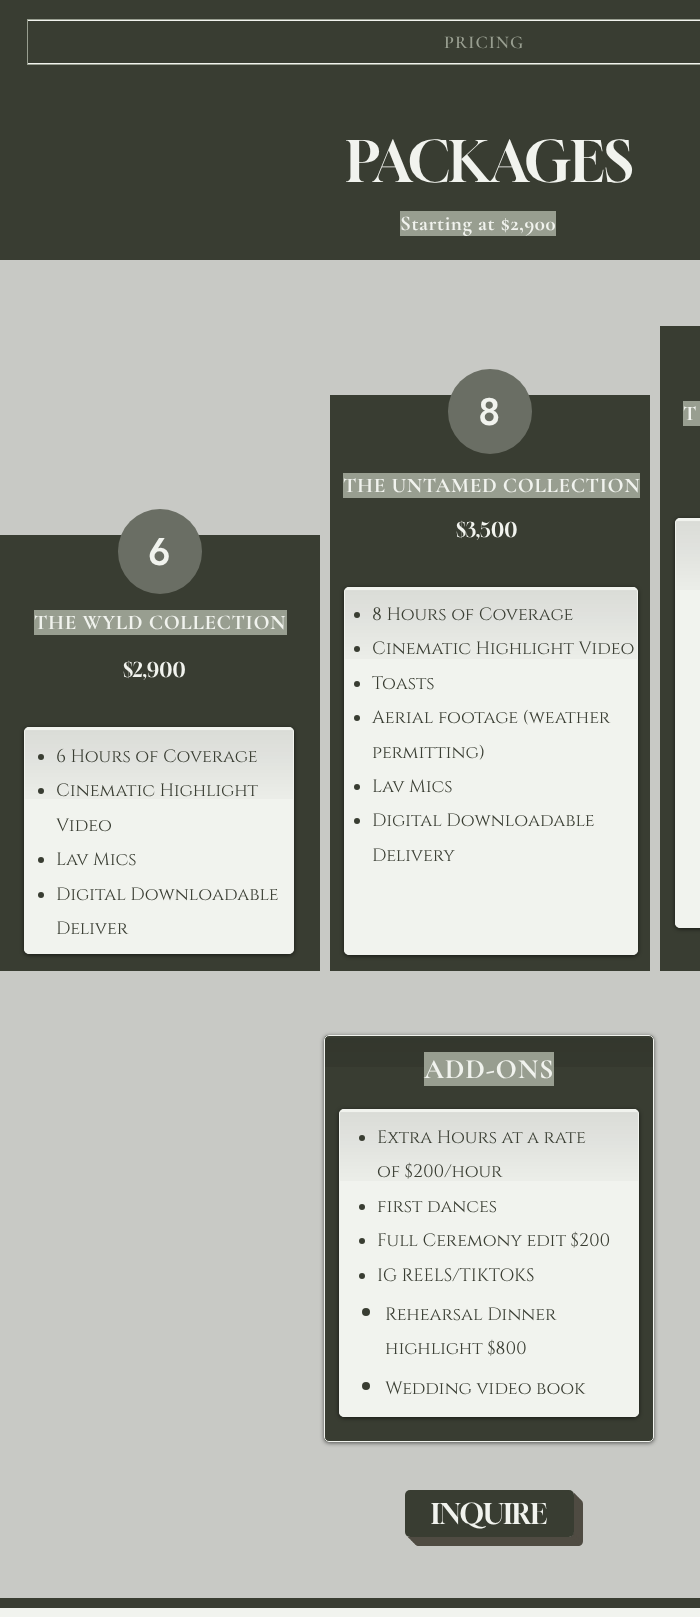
<!DOCTYPE html>
<meta charset="utf-8">
<style>body { margin: 0 } canvas { display: block }</style>
<canvas id="canvas" width="700" height="1617"></canvas>
<script type="module">
  const canvas = document.getElementById("canvas");
  const g = canvas.getContext("2d");
  g.miterLimit = 4;
  g.fontKerning = "normal";
  function drawText(s, x, y, [font, color]) {
    g.font = font;
    g.fillStyle = color;
    g.fillText(s, x, y);
  }
  function fillBox(x, y, w, h, color) {
    g.fillStyle = color;
    g.fillRect(x, y, w, h);
  }
  function fillRounded(x, y, w, h, r, color) {
    g.fillStyle = color;
    g.beginPath();
    g.roundRect(x, y, w, h, r);
    g.fill();
  }
  async function drawPicture(src, x, y, w, h) {
    const img = new Image();
    img.src = src;
    await img.decode();
    g.drawImage(img, x, y, w, h);
  }

  const s1 = ["600 18px Cormorant Garamond", "#989E90"];
  const s2 = ["56px Gloock", "#F1F3EE"];
  const s3 = ["bold 21px Cormorant Garamond", "#F1F3EE"];
  const s4 = ["900 38px 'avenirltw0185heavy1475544'", "#F1F3EE"];
  const s5 = ["20px Gloock", "#F1F3EE"];
  const s6 = ["18px Cinzel", "#393D32"];
  const s7 = ["bold 28px Cormorant Garamond", "#F1F3EE"];
  const s8 = ["28px Gloock", "#F1F3EE"];

  fillBox(0, 0, 700, 1617, "#393D32");
  g.strokeStyle = "#989E90";
  g.strokeRect(27.5, 19.5, 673, 45);
  fillBox(28, 20, 672, 1, "#F1F3EE");
  fillBox(28, 63, 672, 1, "#F1F3EE");
  g.letterSpacing = "1px";
  drawText("PRICING", 444, 48, s1);
  g.letterSpacing = "0px";
  drawText("PACKAGES", 346, 182, s2);
  fillBox(400, 211, 156, 25, "#989E90");
  g.letterSpacing = "0.6px";
  drawText("Starting at $2,900", 400, 230, s3);
  fillBox(0, 260, 700, 1338, "#C8C9C5");
  fillBox(330, 395, 320, 576, "#393D32");
  fillRounded(448, 369, 84, 85, 42, "#6A6E64");
  g.letterSpacing = "0px";
  drawText("8", 478, 425, s4);
  fillBox(343, 473, 297, 25, "#989E90");
  g.letterSpacing = "0.6px";
  drawText("THE UNTAMED COLLECTION", 343, 492, s3);
  g.letterSpacing = "0px";
  drawText("$3,500", 456, 537, s5);
  g.fillStyle = "rgba(0, 0, 0, 0.6)";
  g.filter = "blur(2px)";
  g.beginPath();
  g.roundRect(344, 588, 294, 368, 5);
  g.fill();
  g.filter = "none";
  fillRounded(344, 587, 294, 368, 5, "#F1F3EE");
  await drawPicture("pic1.png", 344, 590, 294, 69);
  g.beginPath();
  g.roundRect(344.5, 587.5, 293, 367, 4.5);
  g.strokeStyle = "#F1F3EE";
  g.stroke();
  g.fillStyle = "#393D32";
  g.beginPath();
  g.arc(357, 615, 3, 0, Math.PI * 2);
  g.fill();
  drawText("8 Hours of Coverage", 372, 620, s6);
  g.beginPath();
  g.arc(357, 649, 3, 0, Math.PI * 2);
  g.fill();
  drawText("Cinematic Highlight Video", 372, 654, s6);
  g.beginPath();
  g.arc(357, 684, 3, 0, Math.PI * 2);
  g.fill();
  drawText("Toasts", 372, 689, s6);
  g.beginPath();
  g.arc(357, 718, 3, 0, Math.PI * 2);
  g.fill();
  drawText("Aerial footage (weather", 372, 723, s6);
  drawText("permitting)", 372, 758, s6);
  g.beginPath();
  g.arc(357, 787, 3, 0, Math.PI * 2);
  g.fill();
  drawText("Lav Mics", 372, 792, s6);
  g.beginPath();
  g.arc(357, 821, 3, 0, Math.PI * 2);
  g.fill();
  drawText("Digital Downloadable", 372, 826, s6);
  drawText("Delivery", 372, 861, s6);
  fillBox(660, 326, 40, 645, "#393D32");
  fillBox(683, 401, 17, 25, "#989E90");
  g.letterSpacing = "0.6px";
  drawText("T", 683, 420, s3);
  g.fillStyle = "rgba(0, 0, 0, 0.6)";
  g.filter = "blur(2px)";
  g.beginPath();
  g.roundRect(675, 519, 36, 410, 5);
  g.fill();
  g.filter = "none";
  fillRounded(675, 518, 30, 410, 5, "#F1F3EE");
  await drawPicture("pic2.png", 675, 521, 25, 69);
  g.beginPath();
  g.roundRect(675.5, 518.5, 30, 409, 4.5);
  g.stroke();
  fillBox(0, 535, 320, 436, "#393D32");
  fillRounded(118, 509, 84, 85, 42, "#6A6E64");
  g.letterSpacing = "0px";
  drawText("6", 148, 565, s4);
  fillBox(34, 610, 253, 25, "#989E90");
  g.letterSpacing = "0.6px";
  drawText("THE WYLD COLLECTION", 34, 629, s3);
  g.letterSpacing = "0px";
  drawText("$2,900", 123, 677, s5);
  g.fillStyle = "rgba(0, 0, 0, 0.6)";
  g.filter = "blur(2px)";
  g.beginPath();
  g.roundRect(24, 728, 270, 227, 5);
  g.fill();
  g.filter = "none";
  fillRounded(24, 727, 270, 227, 5, "#F1F3EE");
  await drawPicture("pic3.png", 24, 730, 270, 69);
  g.beginPath();
  g.roundRect(24.5, 727.5, 269, 226, 4.5);
  g.stroke();
  g.fillStyle = "#393D32";
  g.beginPath();
  g.arc(41, 757, 3, 0, Math.PI * 2);
  g.fill();
  drawText("6 Hours of Coverage", 56, 762, s6);
  g.beginPath();
  g.arc(41, 791, 3, 0, Math.PI * 2);
  g.fill();
  drawText("Cinematic Highlight", 56, 796, s6);
  drawText("Video", 56, 831, s6);
  g.beginPath();
  g.arc(41, 860, 3, 0, Math.PI * 2);
  g.fill();
  drawText("Lav Mics", 56, 865, s6);
  g.beginPath();
  g.arc(41, 895, 3, 0, Math.PI * 2);
  g.fill();
  drawText("Digital Downloadable", 56, 900, s6);
  drawText("Deliver", 56, 934, s6);
  g.fillStyle = "rgba(0, 0, 0, 0.6)";
  g.filter = "blur(2px)";
  g.beginPath();
  g.roundRect(324, 1036, 330, 407, 5);
  g.fill();
  g.filter = "none";
  fillRounded(324, 1035, 330, 407, 5, "#393D32");
  await drawPicture("pic4.png", 324, 1038, 330, 29);
  g.beginPath();
  g.roundRect(324.5, 1035.5, 329, 406, 4.5);
  g.stroke();
  fillBox(424, 1052, 130, 34, "#989E90");
  g.letterSpacing = "0.75px";
  drawText("ADD-ONS", 424, 1078, s7);
  g.fillStyle = "rgba(0, 0, 0, 0.6)";
  g.filter = "blur(2px)";
  g.beginPath();
  g.roundRect(339, 1110, 300, 308, 5);
  g.fill();
  g.filter = "none";
  fillRounded(339, 1109, 300, 308, 5, "#F1F3EE");
  await drawPicture("pic5.png", 339, 1112, 300, 69);
  g.beginPath();
  g.roundRect(339.5, 1109.5, 299, 307, 4.5);
  g.stroke();
  g.fillStyle = "#393D32";
  g.beginPath();
  g.arc(362, 1138, 3, 0, Math.PI * 2);
  g.fill();
  g.letterSpacing = "0px";
  drawText("Extra Hours at a rate", 377, 1143, s6);
  drawText("of $200/hour", 377, 1177, s6);
  g.beginPath();
  g.arc(362, 1207, 3, 0, Math.PI * 2);
  g.fill();
  drawText("first dances", 377, 1212, s6);
  g.beginPath();
  g.arc(362, 1241, 3, 0, Math.PI * 2);
  g.fill();
  drawText("Full Ceremony edit $200", 377, 1246, s6);
  g.beginPath();
  g.arc(362, 1276, 3, 0, Math.PI * 2);
  g.fill();
  drawText("IG REELS/TIKTOKS", 377, 1281, s6);
  g.beginPath();
  g.arc(366, 1312, 4, 0, Math.PI * 2);
  g.fill();
  drawText("Rehearsal Dinner", 385, 1320, s6);
  drawText("highlight $800", 385, 1354, s6);
  g.beginPath();
  g.arc(366, 1386, 4, 0, Math.PI * 2);
  g.fill();
  drawText("Wedding video book", 385, 1394, s6);
  g.fillStyle = "#4F4B42";
  g.beginPath();
  g.moveTo(414, 1537);
  g.lineTo(414, 1541);
  g.bezierCurveTo(414, 1544, 416, 1546, 419, 1546);
  g.lineTo(578, 1546);
  g.bezierCurveTo(581, 1546, 583, 1544, 583, 1541);
  g.lineTo(583, 1504);
  g.bezierCurveTo(583, 1501, 581, 1499, 578, 1499);
  g.lineTo(574, 1499);
  g.lineTo(574, 1532);
  g.bezierCurveTo(574, 1535, 572, 1537, 569, 1537);
  g.closePath();
  g.fill();
  g.beginPath();
  g.moveTo(412, 1537);
  g.lineTo(412, 1539);
  g.bezierCurveTo(412, 1542, 414, 1544, 417, 1544);
  g.lineTo(576, 1544);
  g.bezierCurveTo(579, 1544, 581, 1542, 581, 1539);
  g.lineTo(581, 1502);
  g.bezierCurveTo(581, 1499, 579, 1497, 576, 1497);
  g.lineTo(574, 1497);
  g.lineTo(574, 1532);
  g.bezierCurveTo(574, 1535, 572, 1537, 569, 1537);
  g.closePath();
  g.fill();
  g.beginPath();
  g.moveTo(410, 1537);
  g.bezierCurveTo(410, 1540, 412, 1542, 415, 1542);
  g.lineTo(574, 1542);
  g.bezierCurveTo(577, 1542, 579, 1540, 579, 1537);
  g.lineTo(579, 1500);
  g.bezierCurveTo(579, 1497, 577, 1495, 574, 1495);
  g.lineTo(574, 1532);
  g.bezierCurveTo(574, 1535, 572, 1537, 569, 1537);
  g.closePath();
  g.fill();
  g.beginPath();
  g.moveTo(408, 1537);
  g.bezierCurveTo(409, 1539, 411, 1540, 413, 1540);
  g.lineTo(572, 1540);
  g.bezierCurveTo(575, 1540, 577, 1538, 577, 1535);
  g.lineTo(577, 1498);
  g.bezierCurveTo(577, 1496, 576, 1494, 574, 1493);
  g.lineTo(574, 1526);
  g.bezierCurveTo(574, 1530, 575, 1537, 569, 1537);
  g.closePath();
  g.fill();
  g.beginPath();
  g.moveTo(407, 1536);
  g.bezierCurveTo(408, 1537, 409, 1538, 411, 1538);
  g.lineTo(570, 1538);
  g.bezierCurveTo(573, 1538, 575, 1536, 575, 1533);
  g.lineTo(575, 1496);
  g.bezierCurveTo(575, 1494, 574, 1493, 573, 1492);
  g.bezierCurveTo(574, 1493, 574, 1494, 574, 1495);
  g.lineTo(574, 1532);
  g.bezierCurveTo(574, 1535, 572, 1537, 569, 1537);
  g.lineTo(410, 1537);
  g.bezierCurveTo(409, 1537, 408, 1537, 407, 1536);
  g.closePath();
  g.fill();
  fillRounded(405, 1490, 169, 47, 5, "#393D32");
  drawText("INQUIRE", 431, 1524, s8);
  fillBox(0, 1608, 700, 9, "#F1F3EE");
</script>
